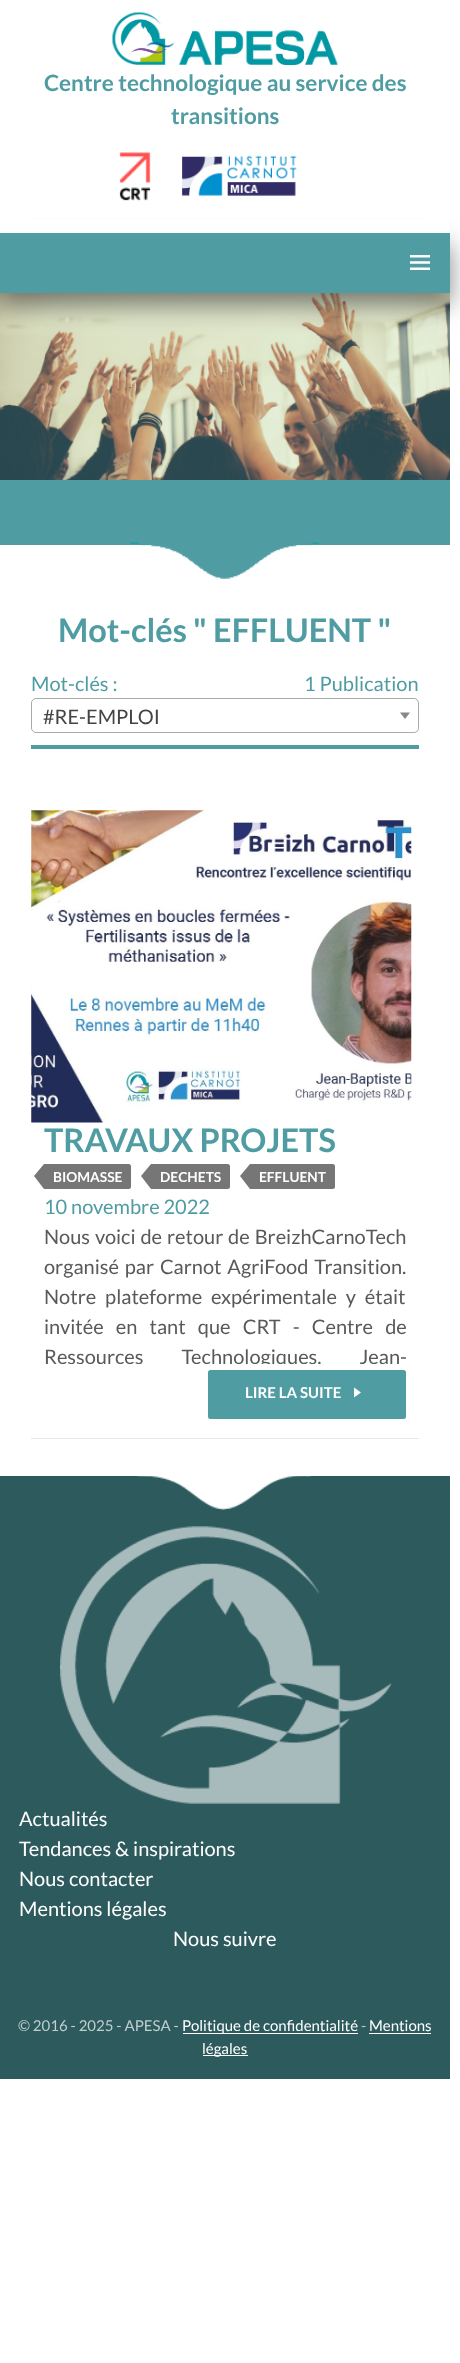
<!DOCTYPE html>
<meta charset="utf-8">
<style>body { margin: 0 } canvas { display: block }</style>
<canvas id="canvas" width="460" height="2363"></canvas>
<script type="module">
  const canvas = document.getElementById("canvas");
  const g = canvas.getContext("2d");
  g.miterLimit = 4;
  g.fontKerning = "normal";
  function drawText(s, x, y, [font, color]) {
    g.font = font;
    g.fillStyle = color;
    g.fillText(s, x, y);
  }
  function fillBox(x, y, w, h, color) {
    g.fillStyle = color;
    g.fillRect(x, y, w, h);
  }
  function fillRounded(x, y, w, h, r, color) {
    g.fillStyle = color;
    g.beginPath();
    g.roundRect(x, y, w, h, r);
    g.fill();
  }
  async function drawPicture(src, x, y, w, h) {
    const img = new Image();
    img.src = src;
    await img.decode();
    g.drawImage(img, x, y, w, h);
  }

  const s1 = ["bold 22.5px Lato", "#4F9CA2"];
  const s2 = ["bold 32.5px Lato", "#4F9CA2"];
  const s3 = ["20px Lato", "#4F9CA2"];
  const s4 = ["20px Lato", "#444444"];
  const s5 = ["bold 13.75px Lato", "#FFFFFF"];
  const s6 = ["20px Lato", "#58595B"];
  const s7 = ["bold 15px Lato", "#FFFFFF"];
  const s8 = ["20px Lato", "#FFFFFF"];
  const s9 = ["15px Lato", "#C0CECE"];
  const s10 = ["15px Lato", "#FFFFFF"];

  fillBox(0, 0, 460, 2363, "#FFFFFF");
  await drawPicture("pic9.png", 0, 293, 450, 187);
  g.fillStyle = "rgba(51, 51, 51, 0.6)";
  g.filter = "blur(12.5px)";
  g.beginPath();
  g.rect(0, 245, 450, 60);
  g.fill();
  g.filter = "none";
  fillBox(0, 220, 450, 13, "#FFFFFF");
  await drawPicture("pic1.png", 112, 12, 226, 53);
  drawText("Centre technologique au service des", 44, 91, s1);
  drawText("transitions", 171, 124, s1);
  await drawPicture("pic2.png", 119, 152, 32, 49);
  await drawPicture("pic3.png", 182, 155, 115, 41);
  fillBox(0, 233, 450, 60, "#4F9CA2");
  await drawPicture("pic4.png", 410, 255, 20, 15);
  fillBox(0, 480, 450, 65, "#4F9CA2");
  await drawPicture("pic5.png", 130, 542, 189, 37);
  drawText("Mot-clés \" EFFLUENT \"", 58, 642, s2);
  drawText("Mot-clés :", 31, 691, s3);
  drawText("1 Publication", 304, 691, s3);
  g.beginPath();
  g.roundRect(31.5, 698.5, 387, 34, 4.5);
  g.strokeStyle = "#AAAAAA";
  g.stroke();
  drawText("#RE-EMPLOI", 43, 724, s4);
  g.fillStyle = "#888888";
  g.beginPath();
  g.moveTo(400, 712.5);
  g.lineTo(410, 712.5);
  g.lineTo(405, 719);
  g.closePath();
  g.fill();
  fillBox(31, 745, 388, 4, "#4F9CA2");
  fillBox(31, 1438, 388, 1, "#E6E6E6");
  await drawPicture("pic6.png", 31, 810, 381, 313);
  drawText("TRAVAUX PROJETS", 44, 1152, s2);
  g.fillStyle = "#767676";
  g.beginPath();
  g.roundRect(44, 1164, 87, 25, [0, 2.5, 2.5, 0]);
  g.fill();
  g.beginPath();
  g.moveTo(44, 1164);
  g.lineTo(44, 1189);
  g.lineTo(34, 1176);
  g.closePath();
  g.fill();
  drawText("BIOMASSE", 53, 1182, s5);
  g.fillStyle = "#767676";
  g.beginPath();
  g.roundRect(151, 1164, 79, 25, [0, 2.5, 2.5, 0]);
  g.fill();
  g.beginPath();
  g.moveTo(151, 1164);
  g.lineTo(151, 1189);
  g.lineTo(141, 1176);
  g.closePath();
  g.fill();
  drawText("DECHETS", 160, 1182, s5);
  g.fillStyle = "#767676";
  g.beginPath();
  g.roundRect(250, 1164, 85, 25, [0, 2.5, 2.5, 0]);
  g.fill();
  g.beginPath();
  g.moveTo(250, 1164);
  g.lineTo(250, 1189);
  g.lineTo(240, 1176);
  g.closePath();
  g.fill();
  drawText("EFFLUENT", 259, 1182, s5);
  drawText("10 novembre 2022", 44, 1214, s3);
  g.wordSpacing = "1px";
  drawText("Nous voici de retour de BreizhCarnoTech", 44, 1244, s6);
  g.wordSpacing = "2px";
  drawText("organisé par Carnot AgriFood Transition.", 44, 1274, s6);
  g.wordSpacing = "5px";
  drawText("Notre plateforme expérimentale y était", 44, 1304, s6);
  g.wordSpacing = "8.25px";
  drawText("invitée en tant que CRT - Centre de", 44, 1334, s6);
  g.save();
  g.beginPath();
  g.rect(31, 1191, 388, 173);
  g.clip();
  g.wordSpacing = "34px";
  drawText("Ressources Technologiques. Jean-", 44, 1364, s6);
  g.restore();
  fillRounded(208, 1370, 198, 49, 2.5, "#4F9CA2");
  g.wordSpacing = "0px";
  drawText("LIRE LA SUITE", 245, 1398, s7);
  g.beginPath();
  g.moveTo(354, 1387.5);
  g.lineTo(361, 1392.5);
  g.lineTo(354, 1397.5);
  g.closePath();
  g.fill();
  fillBox(0, 1476, 450, 603, "#2D5A5D");
  await drawPicture("pic7.png", 137, 1476, 174, 34);
  await drawPicture("pic8.png", 60, 1526, 332, 278);
  drawText("Actualités", 19, 1826, s8);
  drawText("Tendances & inspirations", 19, 1856, s8);
  drawText("Nous contacter", 19, 1886, s8);
  drawText("Mentions légales", 19, 1916, s8);
  drawText("Nous suivre", 173, 1946, s8);
  drawText("© 2016 - 2025 - APESA -", 18, 2031, s9);
  fillBox(183, 2033, 175, 1, "#FFFFFF");
  drawText("Politique de confidentialité", 182, 2031, s10);
  drawText("-", 361, 2031, s9);
  drawText("Mentions", 369, 2031, s10);
  fillBox(369, 2033, 62, 1, "#FFFFFF");
  fillBox(203, 2055, 45, 1, "#FFFFFF");
  drawText("légales", 202, 2054, s10);
</script>
